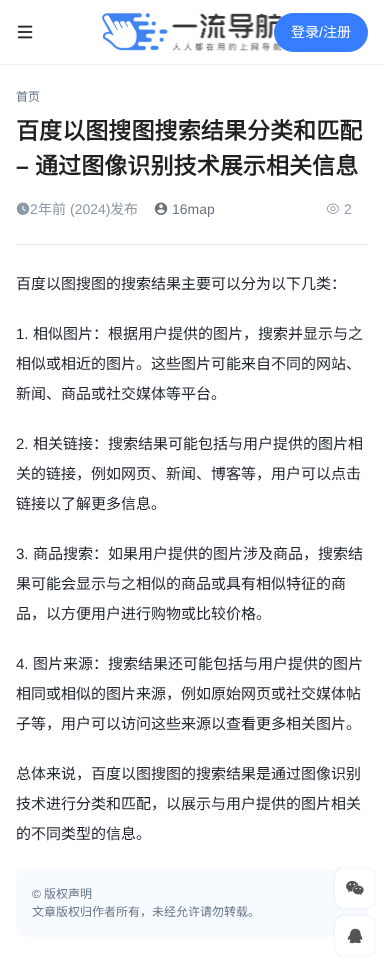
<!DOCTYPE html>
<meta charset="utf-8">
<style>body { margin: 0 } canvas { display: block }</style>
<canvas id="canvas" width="384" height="975"></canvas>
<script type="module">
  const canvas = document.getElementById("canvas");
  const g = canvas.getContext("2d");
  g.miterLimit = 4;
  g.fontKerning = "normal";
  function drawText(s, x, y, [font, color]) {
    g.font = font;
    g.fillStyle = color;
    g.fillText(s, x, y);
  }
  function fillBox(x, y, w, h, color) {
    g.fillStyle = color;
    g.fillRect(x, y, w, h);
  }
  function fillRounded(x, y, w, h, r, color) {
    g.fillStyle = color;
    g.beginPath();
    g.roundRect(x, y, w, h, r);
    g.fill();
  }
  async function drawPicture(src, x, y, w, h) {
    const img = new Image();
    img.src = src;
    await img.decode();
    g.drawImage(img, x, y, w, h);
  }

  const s1 = ["14px Noto Sans CJK SC", "#FFFFFF"];
  const s2 = ["14px Liberation Sans", "#FFFFFF"];
  const s3 = ["12px Noto Sans CJK SC", "#677788"];
  const s4 = ["bold 23.1px Noto Sans CJK SC", "#1E2022"];
  const s5 = ["bold 23.1px Liberation Sans", "#1E2022"];
  const s6 = ["14px Liberation Sans", "#8C98A4"];
  const s7 = ["14px Noto Sans CJK SC", "#8C98A4"];
  const s8 = ["14px Liberation Sans", "#6C757D"];
  const s9 = ["15px Noto Sans CJK SC", "#1D232B"];
  const s10 = ["15px Liberation Sans", "#1D232B"];
  const s11 = ["12px Liberation Sans", "#677788"];

  fillBox(0, 0, 384, 975, "#FFFFFF");
  fillBox(0, 64, 384, 1, "#EEF0F7");
  await drawPicture("pic1.png", 17, 25, 16, 14);
  await drawPicture("pic2.png", 102, 13, 180, 39);
  g.fillStyle = "#377DFF";
  g.beginPath();
  g.roundRect(274.5, 13.5, 93, 38, 19);
  g.fill();
  g.strokeStyle = "#377DFF";
  g.stroke();
  drawText("登录", 291, 37, s1);
  drawText("/", 319, 37, s2);
  drawText("注册", 323, 37, s1);
  drawText("首页", 16, 101, s3);
  drawText("百度以图搜图搜索结果分类和匹配", 16, 139, s4);
  drawText("–", 16, 174, s5);
  drawText("通过图像识别技术展示相关信息", 35, 174, s4);
  fillBox(16, 244, 352, 1, "#ECECEC");
  await drawPicture("pic3.png", 16, 202, 14, 13);
  drawText("2", 30, 214, s6);
  drawText("年前", 38, 214, s7);
  drawText("(2024)", 70, 214, s6);
  drawText("发布", 110, 214, s7);
  await drawPicture("pic4.png", 154, 202, 14, 13);
  drawText("16map", 172, 214, s8);
  await drawPicture("pic5.png", 326, 203, 14, 11);
  drawText("2", 344, 214, s6);
  drawText("百度以图搜图的搜索结果主要可以分为以下几类：", 16, 289, s9);
  drawText("1.", 16, 339, s10);
  drawText("相似图片：根据用户提供的图片，搜索并显示与之", 33, 339, s9);
  drawText("相似或相近的图片。这些图片可能来自不同的网站、", 16, 369, s9);
  drawText("新闻、商品或社交媒体等平台。", 16, 399, s9);
  drawText("2.", 16, 449, s10);
  drawText("相关链接：搜索结果可能包括与用户提供的图片相", 33, 449, s9);
  drawText("关的链接，例如网页、新闻、博客等，用户可以点击", 16, 479, s9);
  drawText("链接以了解更多信息。", 16, 509, s9);
  drawText("3.", 16, 559, s10);
  drawText("商品搜索：如果用户提供的图片涉及商品，搜索结", 33, 559, s9);
  drawText("果可能会显示与之相似的商品或具有相似特征的商", 16, 589, s9);
  drawText("品，以方便用户进行购物或比较价格。", 16, 619, s9);
  drawText("4.", 16, 669, s10);
  drawText("图片来源：搜索结果还可能包括与用户提供的图片", 33, 669, s9);
  drawText("相同或相似的图片来源，例如原始网页或社交媒体帖", 16, 699, s9);
  drawText("子等，用户可以访问这些来源以查看更多相关图片。", 16, 729, s9);
  drawText("总体来说，百度以图搜图的搜索结果是通过图像识别", 16, 779, s9);
  drawText("技术进行分类和匹配，以展示与用户提供的图片相关", 16, 809, s9);
  drawText("的不同类型的信息。", 16, 839, s9);
  fillRounded(16, 869, 352, 68, 8, "#F7FAFF");
  drawText("©", 32, 898, s11);
  drawText("版权声明", 44, 898, s3);
  drawText("文章版权归作者所有，未经允许请勿转载。", 32, 916, s3);
  g.fillStyle = "rgba(145, 158, 171, 0.2)";
  g.filter = "blur(1px)";
  g.beginPath();
  g.roundRect(335, 868, 40, 40, 8);
  g.fill();
  g.filter = "none";
  g.fillStyle = "rgba(140, 152, 164, 0.3)";
  g.filter = "blur(0.5px)";
  g.beginPath();
  g.roundRect(335, 868, 40, 40, 8);
  g.fill();
  g.filter = "none";
  fillRounded(335, 868, 40, 40, 8, "#FFFFFF");
  await drawPicture("pic6.png", 346, 880, 18, 15);
  g.fillStyle = "rgba(145, 158, 171, 0.2)";
  g.filter = "blur(1px)";
  g.beginPath();
  g.roundRect(335, 916, 40, 40, 8);
  g.fill();
  g.filter = "none";
  g.fillStyle = "rgba(140, 152, 164, 0.3)";
  g.filter = "blur(0.5px)";
  g.beginPath();
  g.roundRect(335, 916, 40, 40, 8);
  g.fill();
  g.filter = "none";
  fillRounded(335, 916, 40, 40, 8, "#FFFFFF");
  await drawPicture("pic7.png", 347, 928, 16, 16);
</script>
